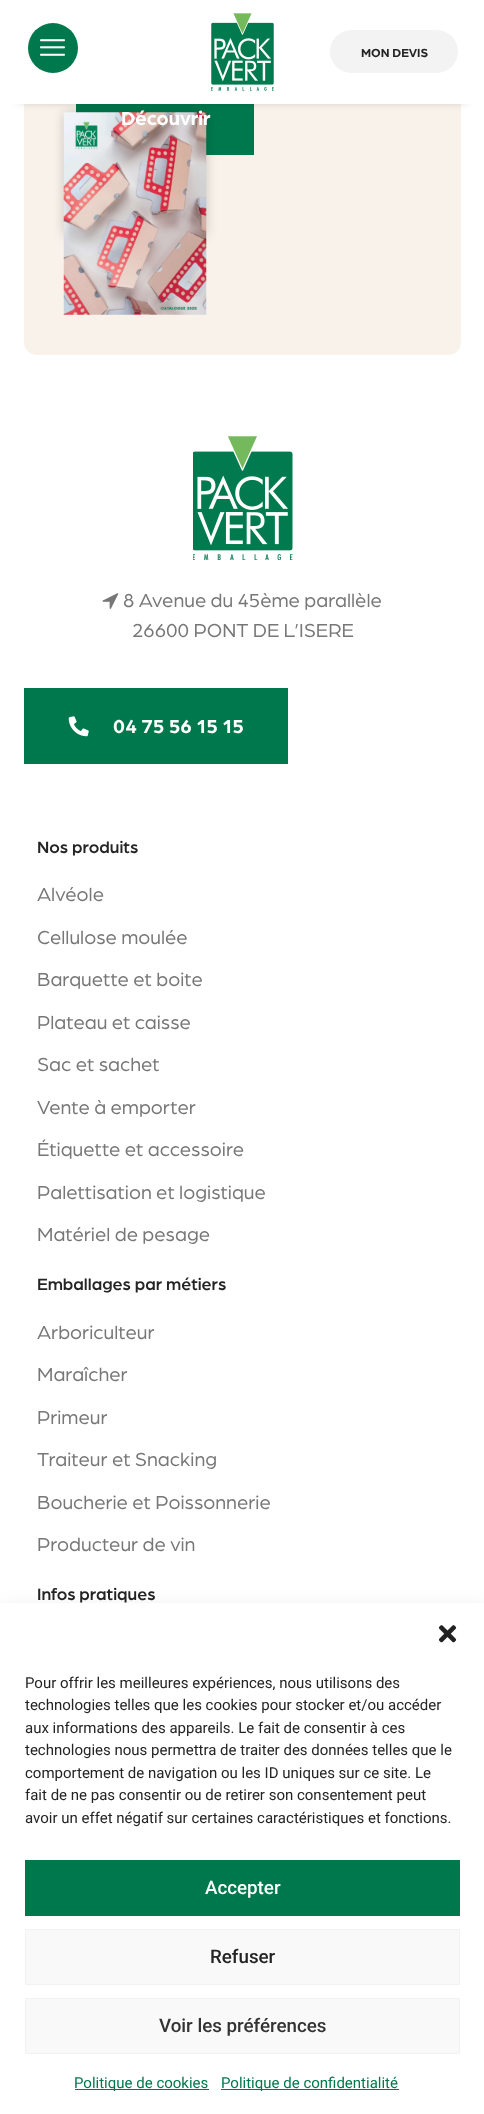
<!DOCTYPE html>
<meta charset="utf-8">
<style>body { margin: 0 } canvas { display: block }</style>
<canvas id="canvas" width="484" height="2114"></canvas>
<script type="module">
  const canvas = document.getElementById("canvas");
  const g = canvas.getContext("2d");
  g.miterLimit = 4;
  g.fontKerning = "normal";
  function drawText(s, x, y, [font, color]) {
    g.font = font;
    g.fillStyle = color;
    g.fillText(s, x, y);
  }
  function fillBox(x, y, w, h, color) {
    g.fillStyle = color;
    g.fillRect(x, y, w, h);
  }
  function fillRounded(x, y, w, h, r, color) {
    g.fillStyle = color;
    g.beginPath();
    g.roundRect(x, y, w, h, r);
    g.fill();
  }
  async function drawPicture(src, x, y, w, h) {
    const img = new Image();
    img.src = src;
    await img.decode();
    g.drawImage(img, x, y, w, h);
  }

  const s1 = ["bold 12.5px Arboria", "#242424"];
  const s2 = ["bold 20px Arboria", "#FFFFFF"];
  const s3 = ["20px Arboria", "#777777"];
  const s4 = ["500 17.5px Arboria", "#242424"];
  const s5 = ["15px Roboto", "#242424"];
  const s6 = ["500 18.75px Roboto", "#FFFFFF"];
  const s7 = ["500 18.75px Roboto", "#242424"];
  const s8 = ["500 18.75px Roboto", "#333333"];
  const s9 = ["15px Roboto", "#00784D"];

  fillBox(0, 0, 484, 2114, "#FFFFFF");
  fillRounded(24, -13, 437, 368, 13, "#F8F2EA");
  fillBox(76, 104, 178, 51, "#00784D");
  g.fillStyle = "rgba(0, 0, 0, 0.2)";
  g.filter = "blur(6px)";
  g.beginPath();
  g.rect(64, 113, 142, 122);
  g.fill();
  g.filter = "none";
  await drawPicture("pic3.png", 63, 112, 144, 203);
  g.fillStyle = "rgba(0, 0, 0, 0.5)";
  g.filter = "blur(6px)";
  g.beginPath();
  g.rect(19, 31, 447, 67);
  g.fill();
  g.filter = "none";
  fillBox(7, 0, 471, 104, "#FFFFFF");
  g.fillStyle = "#00784D";
  g.beginPath();
  g.arc(53, 48, 25, 0, Math.PI * 2);
  g.fill();
  await drawPicture("pic1.png", 40, 39, 25, 17);
  await drawPicture("pic2.png", 211, 13, 63, 78);
  fillRounded(330, 30, 128, 43, 21.5, "#F3F3F3");
  drawText("MON DEVIS", 361, 57, s1);
  drawText("Découvrir", 121, 125, s2);
  await drawPicture("pic4.png", 193, 436, 100, 124);
  await drawPicture("pic5.png", 102, 593, 17, 16);
  drawText("8 Avenue du 45ème parallèle", 123, 607, s3);
  drawText("26600 PONT DE L’ISERE", 132, 637, s3);
  fillBox(24, 688, 264, 76, "#00784D");
  await drawPicture("pic6.png", 68, 716, 21, 21);
  drawText("04 75 56 15 15", 113, 733, s2);
  drawText("Nos produits", 37, 853, s4);
  drawText("Alvéole", 37, 901, s3);
  drawText("Cellulose moulée", 37, 944, s3);
  drawText("Barquette et boite", 37, 986, s3);
  drawText("Plateau et caisse", 37, 1029, s3);
  drawText("Sac et sachet", 37, 1071, s3);
  drawText("Vente à emporter", 37, 1114, s3);
  drawText("Étiquette et accessoire", 37, 1156, s3);
  drawText("Palettisation et logistique", 37, 1199, s3);
  drawText("Matériel de pesage", 37, 1241, s3);
  drawText("Emballages par métiers", 37, 1290, s4);
  drawText("Arboriculteur", 37, 1339, s3);
  drawText("Maraîcher", 37, 1381, s3);
  drawText("Primeur", 37, 1424, s3);
  drawText("Traiteur et Snacking", 37, 1466, s3);
  drawText("Boucherie et Poissonnerie", 37, 1509, s3);
  drawText("Producteur de vin", 37, 1551, s3);
  drawText("Infos pratiques", 37, 1600, s4);
  g.fillStyle = "rgba(0, 0, 0, 0.19)";
  g.filter = "blur(12.5px)";
  g.beginPath();
  g.rect(0, 1615, 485, 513);
  g.fill();
  g.filter = "none";
  fillBox(0, 1603, 484, 511, "#FFFFFF");
  await drawPicture("pic7.png", 438, 1625, 19, 18);
  drawText("Pour offrir les meilleures expériences, nous utilisons des", 25, 1688, s5);
  drawText("technologies telles que les cookies pour stocker et/ou accéder", 25, 1710, s5);
  drawText("aux informations des appareils. Le fait de consentir à ces", 25, 1733, s5);
  drawText("technologies nous permettra de traiter des données telles que le", 25, 1755, s5);
  drawText("comportement de navigation ou les ID uniques sur ce site. Le", 25, 1778, s5);
  drawText("fait de ne pas consentir ou de retirer son consentement peut", 25, 1800, s5);
  drawText("avoir un effet négatif sur certaines caractéristiques et fonctions.", 25, 1823, s5);
  fillBox(25, 1860, 435, 56, "#00784D");
  drawText("Accepter", 205, 1894, s6);
  g.fillStyle = "#F9F9F9";
  g.beginPath();
  g.rect(25.5, 1929.5, 434, 55);
  g.fill();
  g.strokeStyle = "#F2F2F2";
  g.stroke();
  drawText("Refuser", 210, 1963, s7);
  g.fillStyle = "#F9F9F9";
  g.beginPath();
  g.rect(25.5, 1998.5, 434, 55);
  g.fill();
  g.stroke();
  drawText("Voir les préférences", 159, 2032, s8);
  fillBox(75, 2089, 134, 1, "#00784D");
  drawText("Politique de cookies", 74, 2088, s9);
  fillBox(221, 2089, 178, 1, "#00784D");
  drawText("Politique de confidentialité", 221, 2088, s9);
</script>
